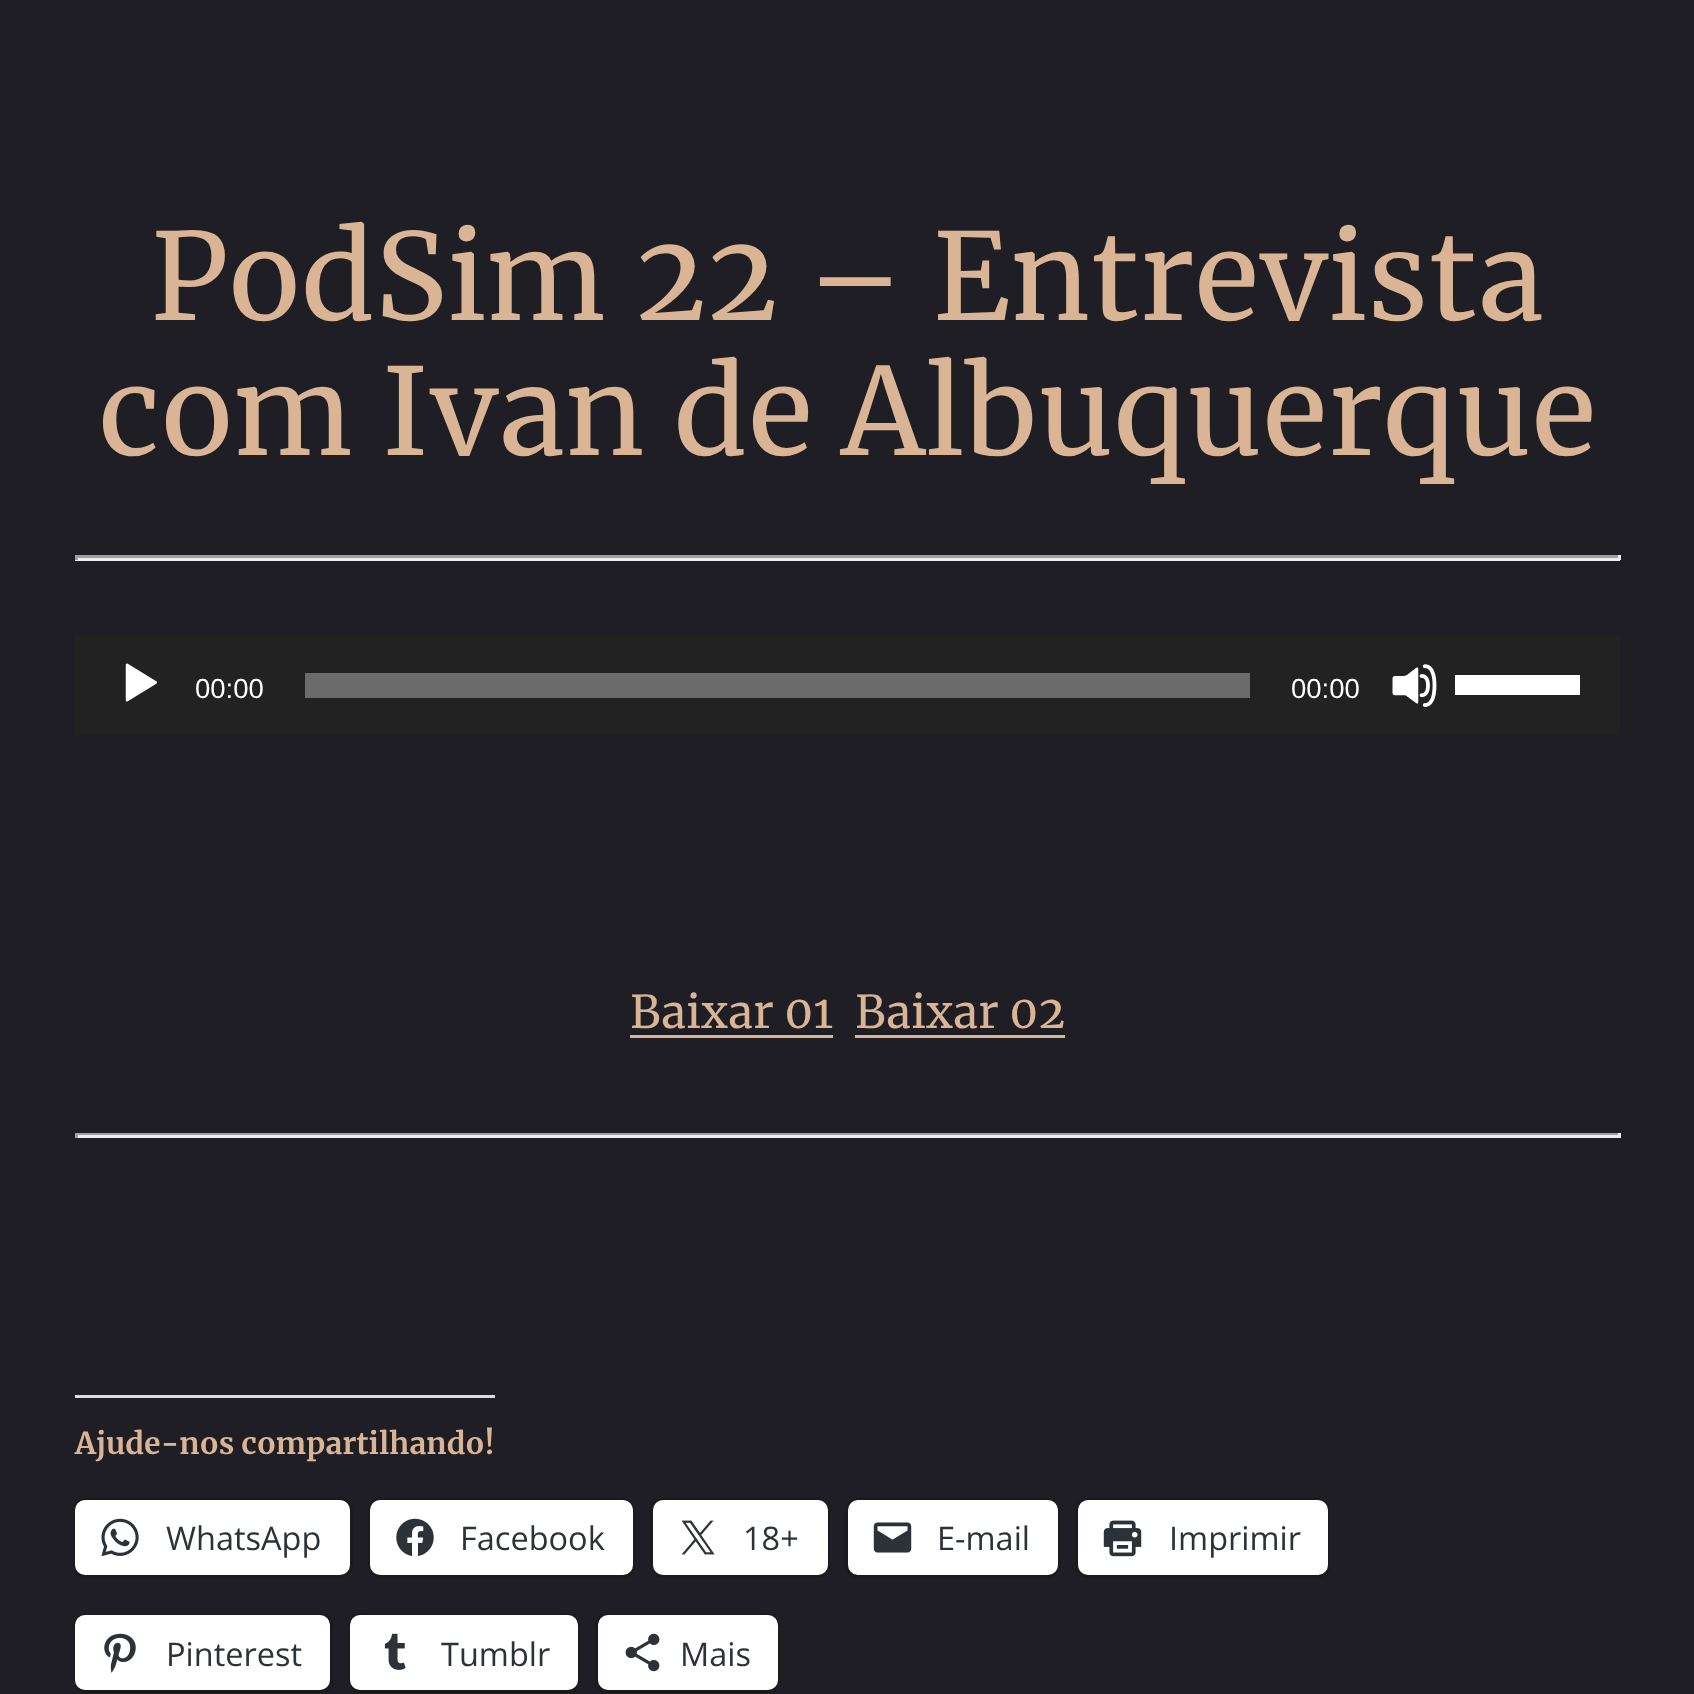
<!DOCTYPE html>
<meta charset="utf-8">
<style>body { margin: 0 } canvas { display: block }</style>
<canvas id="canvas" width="1694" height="1694"></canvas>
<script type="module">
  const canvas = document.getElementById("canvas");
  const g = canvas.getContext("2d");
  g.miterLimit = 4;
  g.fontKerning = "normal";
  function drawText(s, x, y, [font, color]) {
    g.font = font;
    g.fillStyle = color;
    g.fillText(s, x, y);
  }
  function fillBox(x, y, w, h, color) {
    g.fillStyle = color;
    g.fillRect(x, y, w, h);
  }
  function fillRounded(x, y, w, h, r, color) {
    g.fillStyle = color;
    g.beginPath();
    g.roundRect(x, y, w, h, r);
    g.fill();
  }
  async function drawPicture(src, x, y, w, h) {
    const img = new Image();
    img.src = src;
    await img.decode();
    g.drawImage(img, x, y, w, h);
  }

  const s1 = ["120px Merriweather", "#D9B596"];
  const s2 = ["27.5px Liberation Sans", "#FFFFFF"];
  const s3 = ["45px Merriweather", "#D9B596"];
  const s4 = ["bold 30px Merriweather", "#D9B596"];
  const s5 = ["32.5px Open Sans", "#2C3338"];

  fillBox(0, 0, 1694, 1694, "#1E1E24");
  drawText("PodSim 22 – Entrevista", 150, 320, s1);
  drawText("com Ivan de Albuquerque", 99, 455, s1);
  fillBox(75, 555, 1545, 3, "#9F9F9F");
  fillBox(1618, 555, 3, 5, "#EEEEEE");
  fillBox(75, 558, 1545, 3, "#EEEEEE");
  fillBox(75, 555, 3, 5, "#9F9F9F");
  fillBox(75, 635, 1545, 100, "#222222");
  await drawPicture("pic1.png", 125, 663, 32, 39);
  drawText("00:00", 195, 698, s2);
  fillBox(305, 673, 945, 25, "#6B6B6B");
  drawText("00:00", 1291, 698, s2);
  await drawPicture("pic2.png", 1392, 664, 45, 43);
  fillBox(1455, 675, 125, 20, "#FFFFFF");
  drawText("Baixar 01", 630, 1028, s3);
  fillBox(630, 1035, 203, 3, "#D9B596");
  drawText("Baixar 02", 855, 1028, s3);
  fillBox(855, 1035, 210, 3, "#D9B596");
  fillBox(75, 1133, 1545, 2, "#9F9F9F");
  fillBox(1618, 1133, 3, 5, "#EEEEEE");
  fillBox(75, 1135, 1545, 3, "#EEEEEE");
  fillBox(75, 1133, 3, 5, "#9F9F9F");
  fillBox(75, 1395, 420, 3, "#DCDCDE");
  drawText("Ajude-nos compartilhando!", 75, 1454, s4);
  g.beginPath();
  g.roundRect(74.5, 1499.5, 277, 77, 11.5);
  g.strokeStyle = "#1A1A20";
  g.lineWidth = 3;
  g.stroke();
  fillRounded(75, 1500, 275, 75, 10, "#FFFFFF");
  await drawPicture("pic3.png", 101, 1518, 38, 39);
  drawText("WhatsApp", 166, 1550, s5);
  g.beginPath();
  g.roundRect(369.5, 1499.5, 264, 77, 11.5);
  g.stroke();
  fillRounded(370, 1500, 263, 75, 10, "#FFFFFF");
  await drawPicture("pic4.png", 396, 1518, 38, 38);
  drawText("Facebook", 460, 1550, s5);
  g.beginPath();
  g.roundRect(651.5, 1499.5, 177, 77, 11.5);
  g.stroke();
  fillRounded(653, 1500, 175, 75, 10, "#FFFFFF");
  await drawPicture("pic5.png", 681, 1520, 34, 35);
  drawText("18+", 743, 1550, s5);
  g.beginPath();
  g.roundRect(846.5, 1499.5, 212, 77, 11.5);
  g.stroke();
  fillRounded(848, 1500, 210, 75, 10, "#FFFFFF");
  await drawPicture("pic6.png", 873, 1522, 39, 31);
  drawText("E-mail", 937, 1550, s5);
  g.beginPath();
  g.roundRect(1076.5, 1499.5, 252, 77, 11.5);
  g.stroke();
  fillRounded(1078, 1500, 250, 75, 10, "#FFFFFF");
  await drawPicture("pic7.png", 1103, 1520, 39, 37);
  drawText("Imprimir", 1169, 1550, s5);
  g.beginPath();
  g.roundRect(74.5, 1614.5, 257, 77, 11.5);
  g.stroke();
  fillRounded(75, 1615, 255, 75, 10, "#FFFFFF");
  await drawPicture("pic8.png", 104, 1633, 32, 40);
  drawText("Pinterest", 166, 1666, s5);
  g.beginPath();
  g.roundRect(349.5, 1614.5, 229, 77, 11.5);
  g.stroke();
  fillRounded(350, 1615, 228, 75, 10, "#FFFFFF");
  await drawPicture("pic9.png", 384, 1633, 22, 37);
  drawText("Tumblr", 441, 1666, s5);
  g.beginPath();
  g.roundRect(596.5, 1614.5, 182, 77, 11.5);
  g.stroke();
  fillRounded(598, 1615, 180, 75, 10, "#FFFFFF");
  await drawPicture("pic10.png", 625, 1633, 35, 39);
  drawText("Mais", 680, 1666, s5);
</script>
